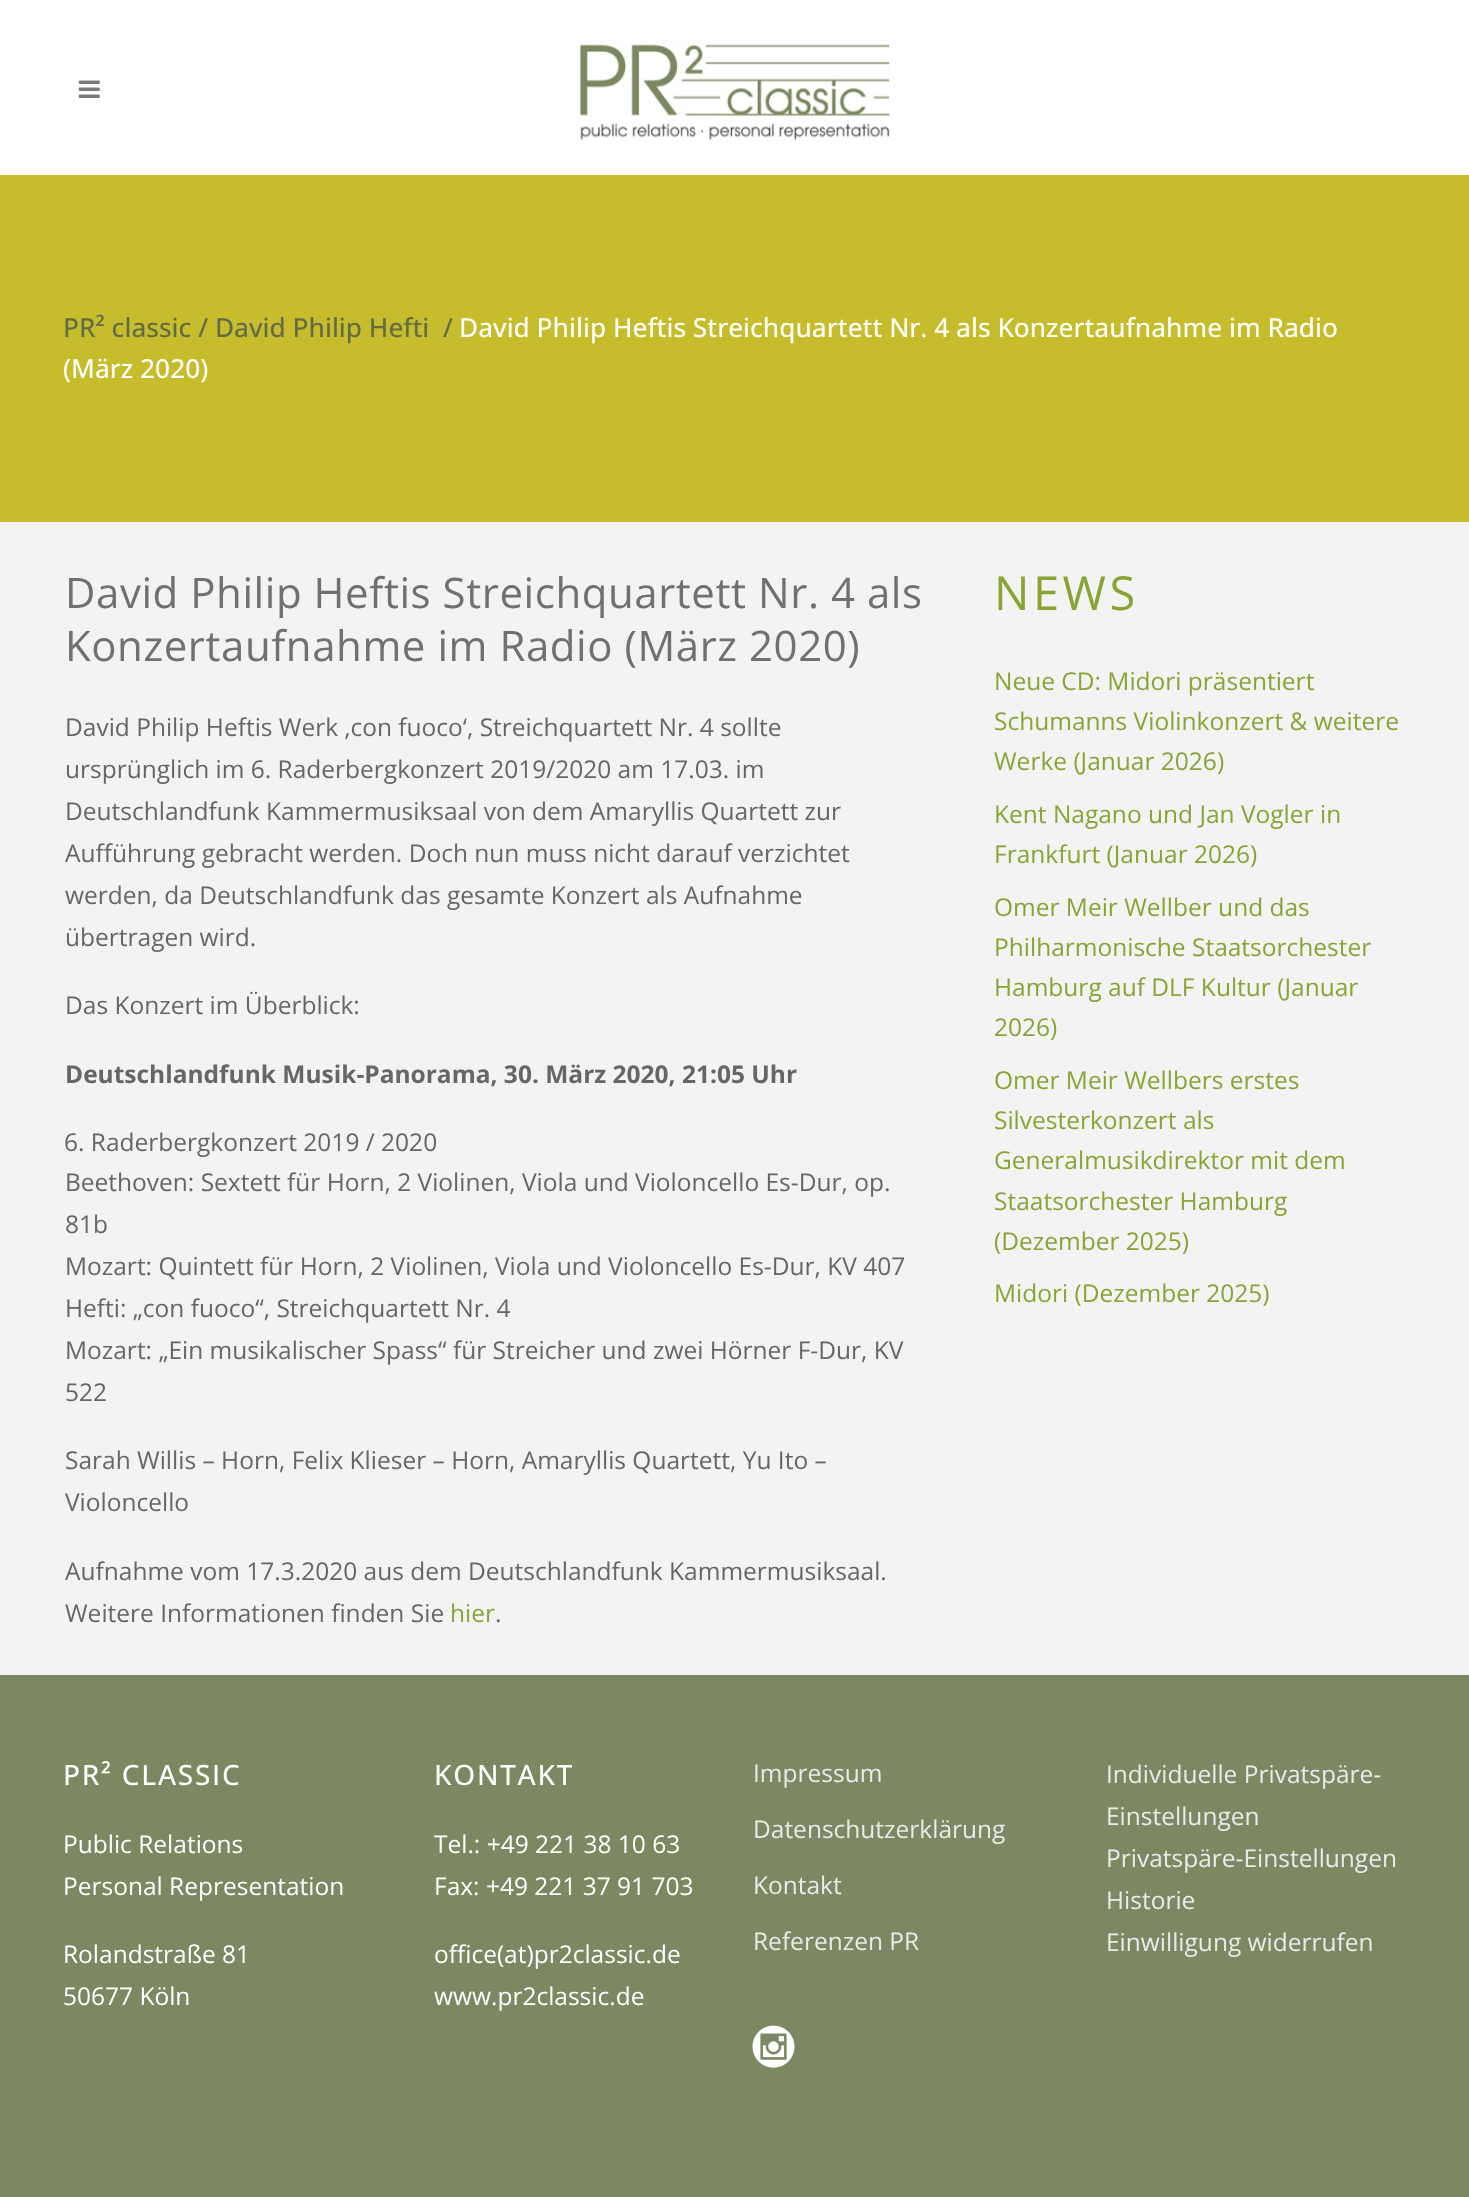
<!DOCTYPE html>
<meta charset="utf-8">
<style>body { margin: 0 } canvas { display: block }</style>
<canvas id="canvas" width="1469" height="2197"></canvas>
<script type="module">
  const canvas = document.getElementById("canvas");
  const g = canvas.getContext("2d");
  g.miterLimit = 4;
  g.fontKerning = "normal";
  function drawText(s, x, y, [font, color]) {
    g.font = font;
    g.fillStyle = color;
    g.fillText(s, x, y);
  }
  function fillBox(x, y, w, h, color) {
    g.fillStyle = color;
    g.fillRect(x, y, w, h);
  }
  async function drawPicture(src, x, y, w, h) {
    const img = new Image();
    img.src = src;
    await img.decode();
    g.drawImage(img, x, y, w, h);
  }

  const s1 = ["500 26.25px Open Sans", "#616C46"];
  const s2 = ["500 26.25px Open Sans", "#FFFFFF"];
  const s3 = ["42px Open Sans", "#707070"];
  const s4 = ["24.5px Open Sans", "#666666"];
  const s5 = ["bold 24.5px Open Sans", "#666666"];
  const s6 = ["24.5px Open Sans", "#89A435"];
  const s7 = ["47px Open Sans", "#89A435"];
  const s8 = ["500 28px Open Sans", "#FFFFFF"];
  const s9 = ["24.5px Open Sans", "#FFFFFF"];
  const s10 = ["24.5px Open Sans", "#EAEAEA"];

  fillBox(0, 0, 1469, 2197, "#FFFFFF");
  await drawPicture("pic1.png", 78, 80, 22, 18);
  await drawPicture("pic2.png", 579, 40, 311, 101);
  fillBox(0, 522, 1469, 1153, "#F3F3F3");
  fillBox(0, 175, 1469, 347, "#C7BD2C");
  drawText("PR² classic / David Philip Hefti", 63, 337, s1);
  drawText("/", 443, 337, s1);
  drawText("David Philip Heftis Streichquartett Nr. 4 als Konzertaufnahme im Radio", 459, 337, s2);
  drawText("(März 2020)", 63, 378, s2);
  g.letterSpacing = "0.55px";
  drawText("David Philip Heftis Streichquartett Nr. 4 als", 65, 608, s3);
  drawText("Konzertaufnahme im Radio (März 2020)", 65, 661, s3);
  g.letterSpacing = "0px";
  drawText("David Philip Heftis Werk ‚con fuoco‘, Streichquartett Nr. 4 sollte", 65, 736, s4);
  drawText("ursprünglich im 6. Raderbergkonzert 2019/2020 am 17.03. im", 65, 778, s4);
  drawText("Deutschlandfunk Kammermusiksaal von dem Amaryllis Quartett zur", 65, 820, s4);
  drawText("Aufführung gebracht werden. Doch nun muss nicht darauf verzichtet", 65, 862, s4);
  drawText("werden, da Deutschlandfunk das gesamte Konzert als Aufnahme", 65, 904, s4);
  drawText("übertragen wird.", 65, 946, s4);
  drawText("Das Konzert im Überblick:", 65, 1014, s4);
  drawText("Deutschlandfunk Musik-Panorama, 30. März 2020, 21:05 Uhr", 65, 1083, s5);
  drawText("6. Raderbergkonzert 2019 / 2020", 64, 1151, s4);
  drawText("Beethoven: Sextett für Horn, 2 Violinen, Viola und Violoncello Es-Dur, op.", 65, 1191, s4);
  drawText("81b", 65, 1233, s4);
  drawText("Mozart: Quintett für Horn, 2 Violinen, Viola und Violoncello Es-Dur, KV 407", 65, 1275, s4);
  drawText("Hefti: „con fuoco“, Streichquartett Nr. 4", 65, 1317, s4);
  drawText("Mozart: „Ein musikalischer Spass“ für Streicher und zwei Hörner F-Dur, KV", 65, 1359, s4);
  drawText("522", 65, 1401, s4);
  drawText("Sarah Willis – Horn, Felix Klieser – Horn, Amaryllis Quartett, Yu Ito –", 65, 1469, s4);
  drawText("Violoncello", 65, 1511, s4);
  drawText("Aufnahme vom 17.3.2020 aus dem Deutschlandfunk Kammermusiksaal.", 65, 1580, s4);
  drawText("Weitere Informationen finden Sie", 65, 1622, s4);
  drawText("hier", 450, 1622, s6);
  drawText(".", 495, 1622, s4);
  g.letterSpacing = "3.5px";
  drawText("NEWS", 994, 610, s7);
  g.letterSpacing = "0px";
  drawText("Neue CD: Midori präsentiert", 994, 690, s6);
  drawText("Schumanns Violinkonzert & weitere", 994, 730, s6);
  drawText("Werke (Januar 2026)", 994, 770, s6);
  drawText("Kent Nagano und Jan Vogler in", 994, 823, s6);
  drawText("Frankfurt (Januar 2026)", 994, 863, s6);
  drawText("Omer Meir Wellber und das", 994, 916, s6);
  drawText("Philharmonische Staatsorchester", 994, 956, s6);
  drawText("Hamburg auf DLF Kultur (Januar", 994, 996, s6);
  drawText("2026)", 994, 1036, s6);
  drawText("Omer Meir Wellbers erstes", 994, 1089, s6);
  drawText("Silvesterkonzert als", 994, 1129, s6);
  drawText("Generalmusikdirektor mit dem", 994, 1169, s6);
  drawText("Staatsorchester Hamburg", 994, 1210, s6);
  drawText("(Dezember 2025)", 994, 1250, s6);
  drawText("Midori (Dezember 2025)", 994, 1302, s6);
  fillBox(0, 1675, 1469, 522, "#7C8861");
  g.letterSpacing = "1.75px";
  drawText("PR² CLASSIC", 63, 1785, s8);
  g.letterSpacing = "0px";
  drawText("Public Relations", 63, 1853, s9);
  drawText("Personal Representation", 63, 1895, s9);
  drawText("Rolandstraße 81", 63, 1963, s9);
  drawText("50677 Köln", 63, 2005, s9);
  g.letterSpacing = "1.75px";
  drawText("KONTAKT", 434, 1785, s8);
  g.letterSpacing = "0px";
  drawText("Tel.: +49 221 38 10 63", 434, 1853, s9);
  drawText("Fax: +49 221 37 91 703", 434, 1895, s9);
  drawText("office(at)pr2classic.de", 434, 1963, s9);
  drawText("www.pr2classic.de", 434, 2005, s9);
  drawText("Impressum", 753, 1782, s10);
  drawText("Datenschutzerklärung", 753, 1838, s10);
  drawText("Kontakt", 753, 1894, s10);
  drawText("Referenzen PR", 753, 1950, s10);
  await drawPicture("pic3.png", 752, 2025, 43, 43);
  drawText("Individuelle Privatspäre-", 1106, 1783, s10);
  drawText("Einstellungen", 1106, 1825, s10);
  drawText("Privatspäre-Einstellungen", 1106, 1867, s10);
  drawText("Historie", 1106, 1909, s10);
  drawText("Einwilligung widerrufen", 1106, 1951, s10);
</script>
